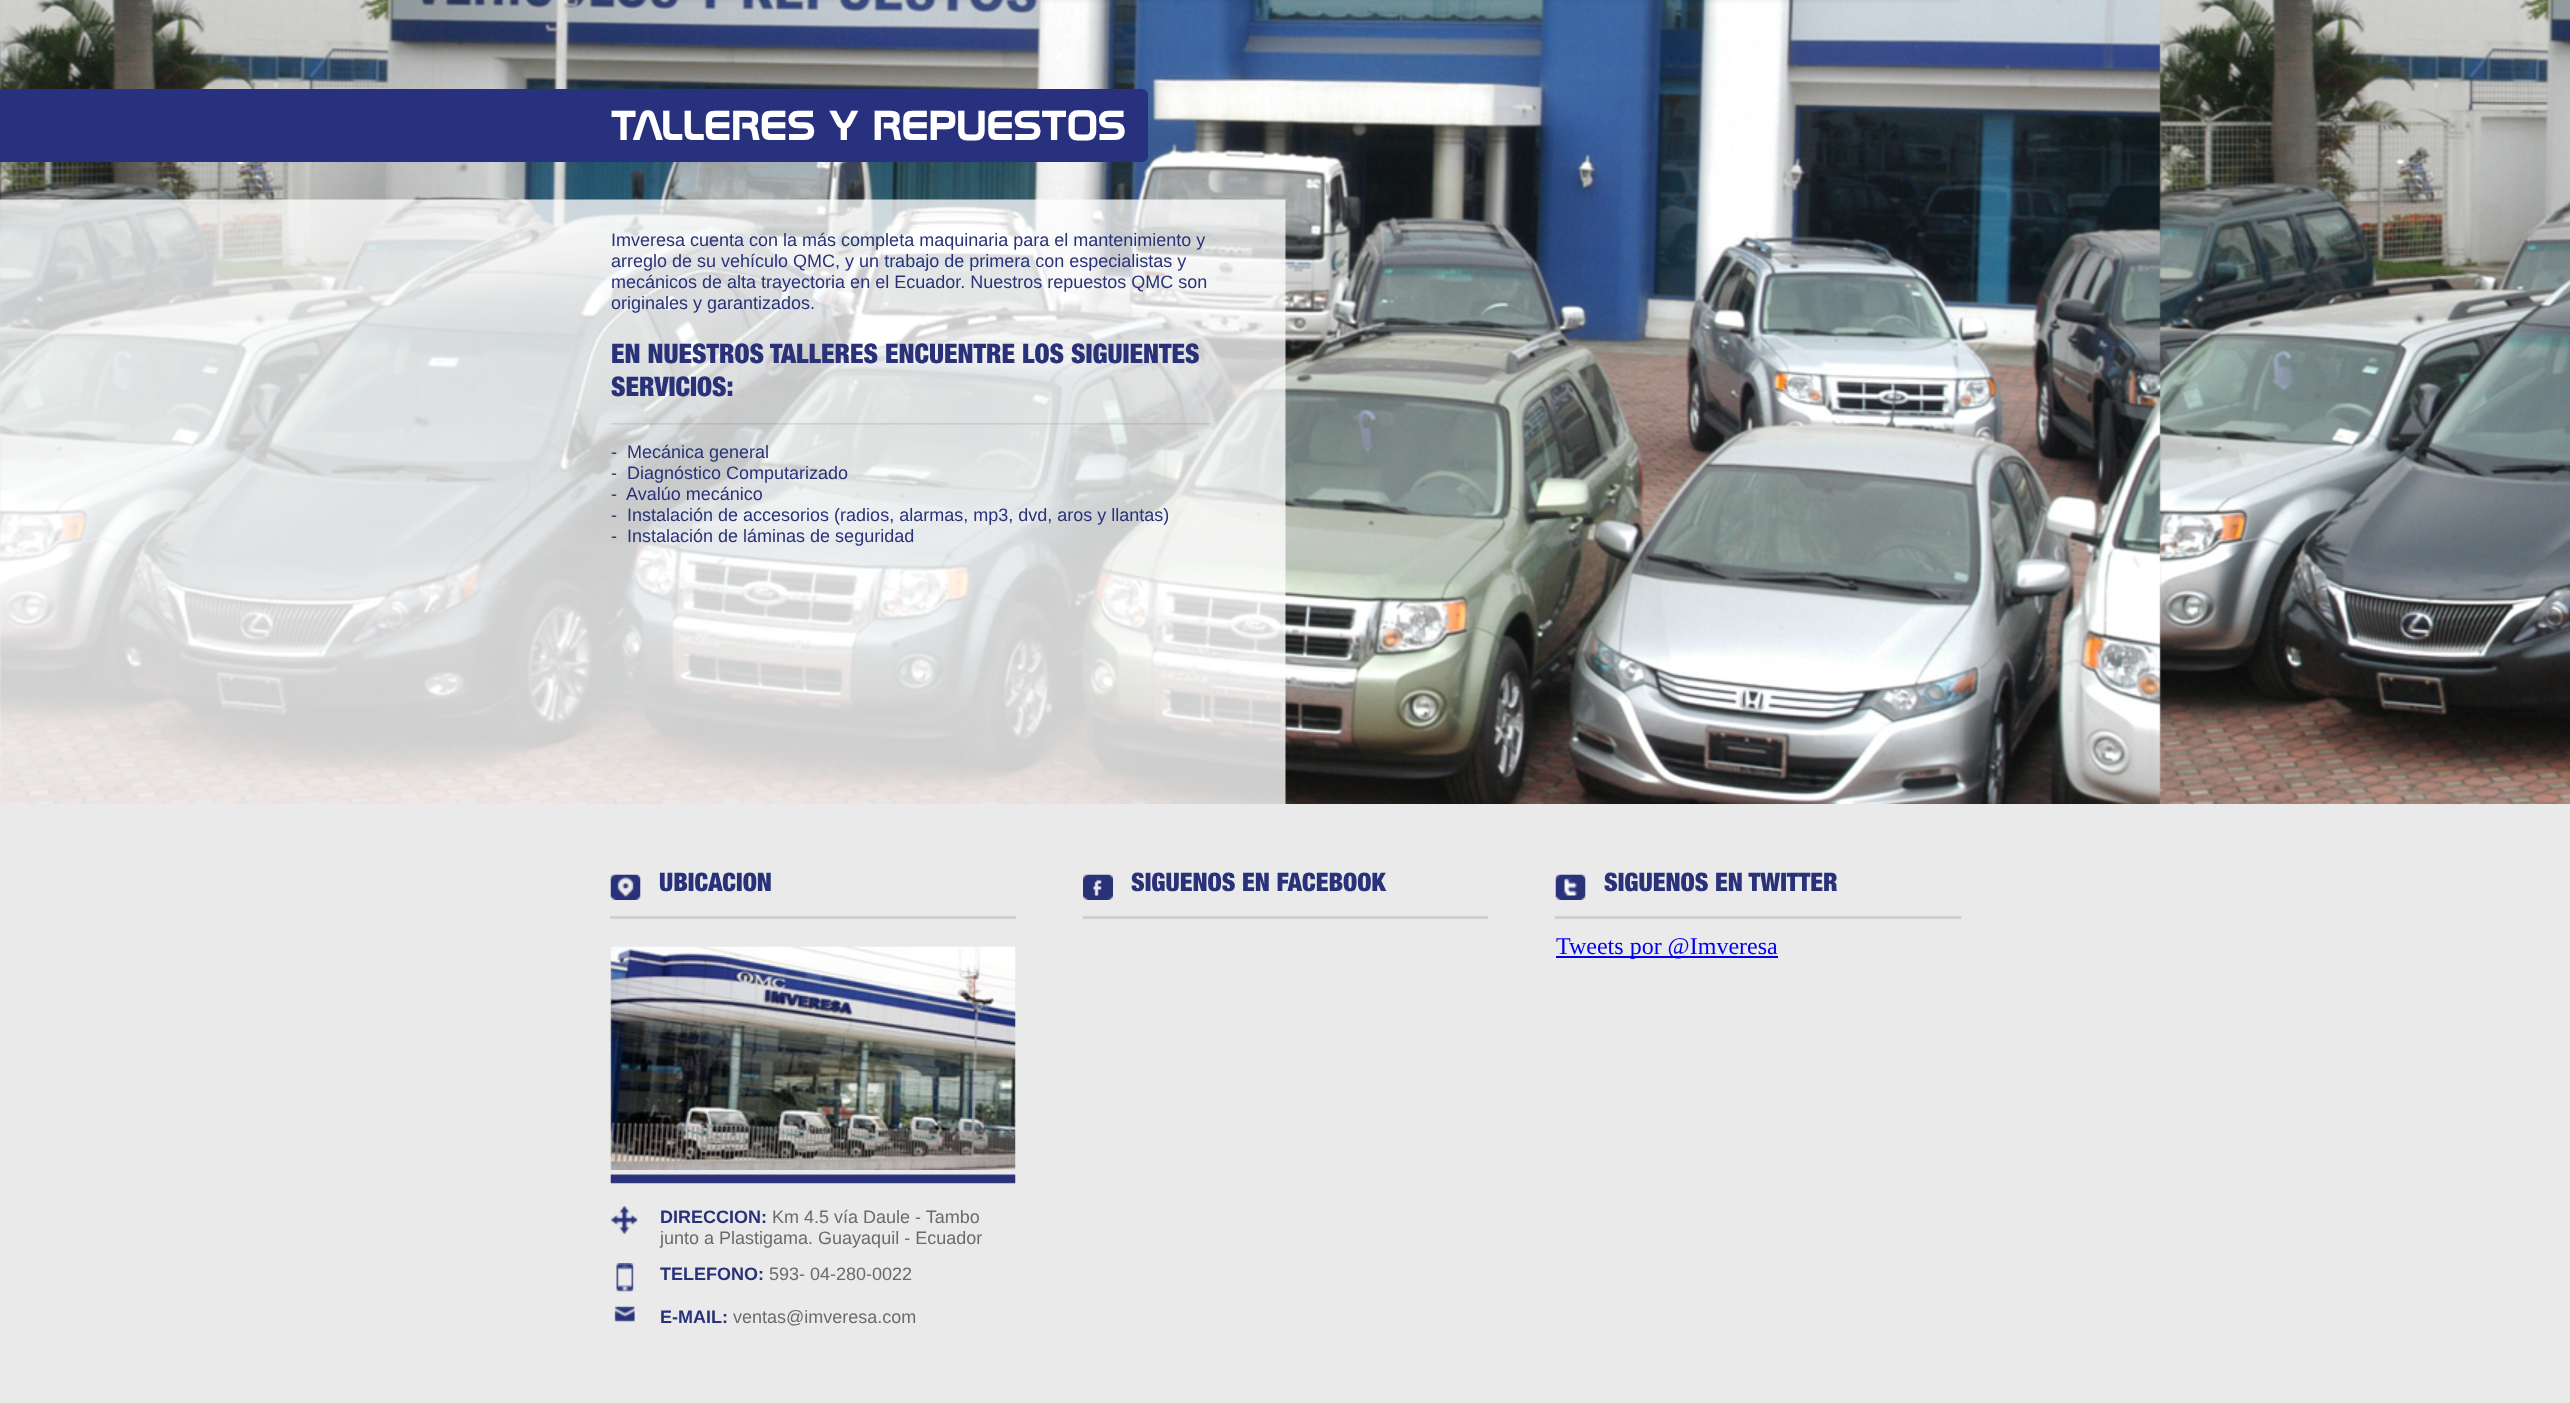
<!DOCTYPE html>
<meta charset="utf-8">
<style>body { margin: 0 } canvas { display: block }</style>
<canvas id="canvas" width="2570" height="1403"></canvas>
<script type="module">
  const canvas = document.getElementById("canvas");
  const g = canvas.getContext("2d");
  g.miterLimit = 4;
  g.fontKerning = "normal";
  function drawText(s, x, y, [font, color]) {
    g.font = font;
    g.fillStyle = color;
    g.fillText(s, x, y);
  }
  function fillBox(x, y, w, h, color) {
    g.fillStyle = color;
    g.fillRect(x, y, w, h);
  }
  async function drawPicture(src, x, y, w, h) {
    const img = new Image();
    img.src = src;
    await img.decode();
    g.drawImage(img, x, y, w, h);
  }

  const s1 = ["bold 42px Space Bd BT", "#FFFFFF"];
  const s2 = ["18px Liberation Sans", "#293279"];
  const s3 = ["900 27px Helvetica Neue", "#293279"];
  const s4 = ["900 25.5px Helvetica Neue", "#293279"];
  const s5 = ["bold 18px Liberation Sans", "#293279"];
  const s6 = ["18px Liberation Sans", "#6B6B6B"];
  const s7 = ["24px Liberation Serif", "#0000EE"];

  fillBox(0, 0, 2570, 1403, "#FFFFFF");
  await drawPicture("pic1.png", 0, 0, 2570, 804);
  await drawPicture("pic2.png", 613, 0, 1347, 3);
  fillBox(0, 89, 611, 73, "#27317D");
  g.beginPath();
  g.roundRect(611, 89, 537, 73, [0, 6, 6, 0]);
  g.fill();
  drawText("TALLERES Y REPUESTOS", 611, 140, s1);
  await drawPicture("pic4.png", 0, 199, 1286, 605);
  drawText("Imveresa cuenta con la más completa maquinaria para el mantenimiento y", 611, 246, s2);
  drawText("arreglo de su vehículo QMC, y un trabajo de primera con especialistas y", 611, 267, s2);
  drawText("mecánicos de alta trayectoria en el Ecuador. Nuestros repuestos QMC son", 611, 288, s2);
  drawText("originales y garantizados.", 611, 309, s2);
  drawText("EN NUESTROS TALLERES ENCUENTRE LOS SIGUIENTES", 611, 363, s3);
  drawText("SERVICIOS:", 611, 396, s3);
  await drawPicture("pic3.png", 610, 423, 601, 2);
  drawText("-  Mecánica general", 611, 458, s2);
  drawText("-  Diagnóstico Computarizado", 611, 479, s2);
  drawText("-  Avalúo mecánico", 611, 500, s2);
  drawText("-  Instalación de accesorios (radios, alarmas, mp3, dvd, aros y llantas)", 611, 521, s2);
  drawText("-  Instalación de láminas de seguridad", 611, 542, s2);
  fillBox(0, 804, 2570, 599, "#EAEAEA");
  await drawPicture("pic5.png", 610, 874, 31, 26);
  drawText("UBICACION", 659, 891, s4);
  fillBox(610, 916, 406, 3, "#D0D0CF");
  await drawPicture("pic6.png", 610, 946, 406, 224);
  await drawPicture("pic7.png", 610, 1174, 406, 10);
  await drawPicture("pic8.png", 610, 1206, 28, 29);
  drawText("DIRECCION:", 660, 1223, s5);
  drawText("Km 4.5 vía Daule - Tambo", 772, 1223, s6);
  drawText("junto a Plastigama. Guayaquil - Ecuador", 660, 1244, s6);
  await drawPicture("pic9.png", 616, 1263, 18, 29);
  drawText("TELEFONO:", 660, 1280, s5);
  drawText("593- 04-280-0022", 769, 1280, s6);
  await drawPicture("pic10.png", 614, 1306, 21, 16);
  drawText("E-MAIL:", 660, 1323, s5);
  drawText("ventas@imveresa.com", 733, 1323, s6);
  await drawPicture("pic11.png", 1083, 874, 30, 26);
  drawText("SIGUENOS EN FACEBOOK", 1131, 891, s4);
  fillBox(1083, 916, 405, 3, "#D0D0CF");
  await drawPicture("pic12.png", 1555, 874, 31, 26);
  drawText("SIGUENOS EN TWITTER", 1604, 891, s4);
  fillBox(1555, 916, 406, 3, "#D0D0CF");
  fillBox(1556, 956, 222, 2, "#0000EE");
  g.save();
  g.beginPath();
  g.rect(1556, 872, 405, 88);
  g.clip();
  drawText("Tweets por @Imveresa", 1556, 954, s7);
  g.restore();
</script>
